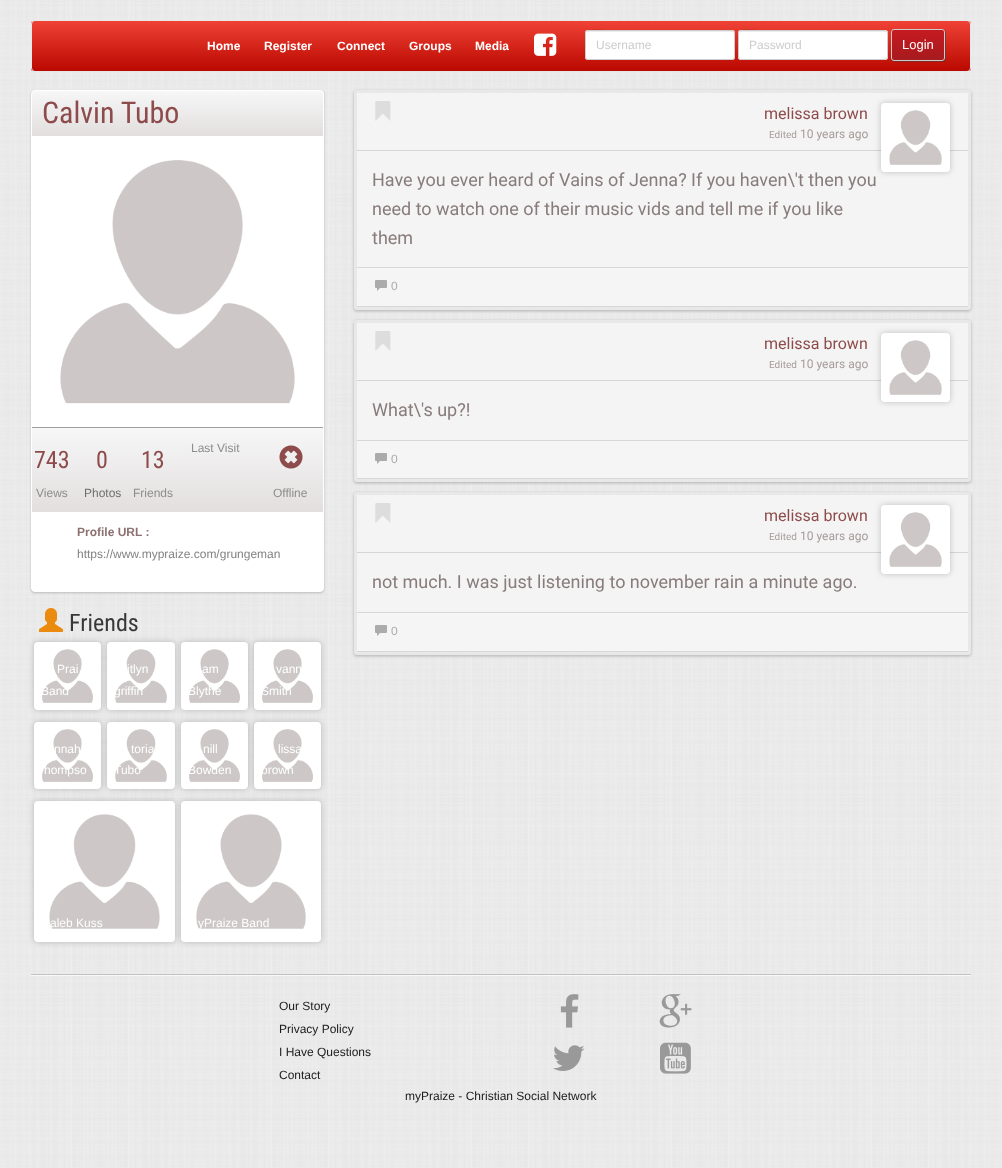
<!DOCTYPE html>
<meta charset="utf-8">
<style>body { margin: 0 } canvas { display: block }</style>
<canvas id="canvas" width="1002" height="1168"></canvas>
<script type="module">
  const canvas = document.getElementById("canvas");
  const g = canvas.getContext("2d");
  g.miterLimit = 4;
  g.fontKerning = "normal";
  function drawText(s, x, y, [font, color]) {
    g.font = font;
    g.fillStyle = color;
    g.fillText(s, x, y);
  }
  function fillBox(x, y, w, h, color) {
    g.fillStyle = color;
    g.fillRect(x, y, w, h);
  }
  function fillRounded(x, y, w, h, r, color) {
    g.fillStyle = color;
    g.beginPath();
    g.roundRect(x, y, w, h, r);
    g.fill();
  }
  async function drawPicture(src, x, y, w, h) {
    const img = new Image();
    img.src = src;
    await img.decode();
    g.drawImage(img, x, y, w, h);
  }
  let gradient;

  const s1 = ["bold 12px Liberation Sans", "#FFFFFF"];
  const s2 = ["12px Liberation Sans", "#CCCCCC"];
  const s3 = ["13px Liberation Sans", "#FFFFFF"];
  const s4 = ["30px Roboto Condensed", "#8E4B4B"];
  const s5 = ["12px Liberation Sans", "#8D8D8D"];
  const s6 = ["24px Roboto Condensed", "#8E4B4B"];
  const s7 = ["12px Liberation Sans", "#6F6F6F"];
  const s8 = ["bold 12px Liberation Sans", "#8D7171"];
  const s9 = ["12px Liberation Sans", "#838383"];
  const s10 = ["24px Roboto Condensed", "#383838"];
  const s11 = ["12px Liberation Sans", "#FFFFFF"];
  const s12 = ["16px Roboto", "#8E4B4B"];
  const s13 = ["10px Roboto", "#A89B9B"];
  const s14 = ["12px Roboto", "#A89B9B"];
  const s15 = ["18px Roboto", "#887B7B"];
  const s16 = ["12px Liberation Sans", "#ABABAB"];
  const s17 = ["12px Liberation Sans", "#1B1B1B"];

  fillBox(0, 0, 1002, 1168, "#FFFFFF");
  await drawPicture("pic1.png", 0, 0, 1002, 1168);
  g.save();
  g.beginPath();
  g.roundRect(31, 20, 940, 52, 4);
  g.clip();
  gradient = g.createLinearGradient(501, 21, 501, 71);
  gradient.addColorStop(0.01, "#EF4135");
  gradient.addColorStop(1, "#BA0900");
  g.fillStyle = gradient;
  g.fillRect(31, 21, 940, 50);
  g.restore();
  g.beginPath();
  g.roundRect(31.5, 20.5, 939, 51, 3.5);
  g.strokeStyle = "#E7E7E7";
  g.stroke();
  drawText("Home", 207, 50, s1);
  drawText("Register", 264, 50, s1);
  drawText("Connect", 337, 50, s1);
  drawText("Groups", 409, 50, s1);
  drawText("Media", 475, 50, s1);
  await drawPicture("pic2.png", 534, 33, 23, 23);
  fillRounded(585, 30, 150, 30, 3, "#FFFFFF");
  g.fillStyle = "rgba(0, 0, 0, 0.07)";
  g.beginPath();
  g.moveTo(588, 32);
  g.lineTo(732, 32);
  g.bezierCurveTo(733, 32, 734, 33, 734, 34);
  g.bezierCurveTo(734, 33, 734, 32, 733, 31);
  g.lineTo(612, 31);
  g.bezierCurveTo(609, 31, 586, 25, 586, 34);
  g.bezierCurveTo(586, 33, 587, 32, 588, 32);
  g.closePath();
  g.fill();
  g.beginPath();
  g.roundRect(585.5, 30.5, 149, 29, 2.5);
  g.strokeStyle = "#CCCCCC";
  g.stroke();
  drawText("Username", 596, 49, s2);
  fillRounded(738, 30, 150, 30, 3, "#FFFFFF");
  g.fillStyle = "rgba(0, 0, 0, 0.07)";
  g.beginPath();
  g.moveTo(741, 32);
  g.lineTo(885, 32);
  g.bezierCurveTo(886, 32, 887, 33, 887, 34);
  g.bezierCurveTo(887, 33, 887, 32, 886, 31);
  g.lineTo(765, 31);
  g.bezierCurveTo(762, 31, 739, 25, 739, 34);
  g.bezierCurveTo(739, 33, 740, 32, 741, 32);
  g.closePath();
  g.fill();
  g.beginPath();
  g.roundRect(738.5, 30.5, 149, 29, 2.5);
  g.stroke();
  drawText("Password", 749, 49, s2);
  g.fillStyle = "rgba(59, 59, 59, 0.5)";
  g.filter = "blur(0.5px)";
  g.beginPath();
  g.roundRect(892, 30, 54, 32, 3);
  g.fill();
  g.filter = "none";
  g.save();
  g.beginPath();
  g.roundRect(891, 29, 54, 32, 3);
  g.clip();
  gradient = g.createLinearGradient(918, 30, 918, 60);
  gradient.addColorStop(0, "#C61A21");
  gradient.addColorStop(1, "#A61B1E");
  g.fillStyle = gradient;
  g.fillRect(891, 30, 54, 30);
  g.restore();
  g.beginPath();
  g.roundRect(891.5, 29.5, 53, 31, 2.5);
  g.stroke();
  drawText("Login", 902, 49, s3);
  g.fillStyle = "rgba(0, 0, 0, 0.2)";
  g.filter = "blur(1px)";
  g.beginPath();
  g.roundRect(31, 91, 293, 502, 4);
  g.fill();
  g.filter = "none";
  g.fillStyle = "#FFFFFF";
  g.beginPath();
  g.roundRect(31.5, 90.5, 292, 501, 3.5);
  g.fill();
  g.strokeStyle = "#FFFFFF";
  g.stroke();
  gradient = g.createLinearGradient(178, 91, 178, 134);
  gradient.addColorStop(0, "#F7F7F7");
  gradient.addColorStop(1, "#E3DFDF");
  g.fillStyle = gradient;
  g.beginPath();
  g.roundRect(32, 91, 291, 43, [4, 4, 0, 0]);
  g.fill();
  fillBox(32, 134, 291, 2, "#E3DFDF");
  drawText("Calvin Tubo", 42, 123, s4);
  await drawPicture("pic3.png", 60, 160, 235, 244);
  gradient = g.createLinearGradient(178, 428, 178, 510);
  gradient.addColorStop(0, "#F7F7F7");
  gradient.addColorStop(1, "#E3DFDF");
  g.fillStyle = gradient;
  g.fillRect(32, 428, 291, 82);
  fillBox(32, 427, 291, 1, "#A29E9E");
  fillBox(32, 510, 291, 2, "#E3DFDF");
  drawText("Last Visit", 191, 452, s5);
  drawText("743", 34, 468, s6);
  drawText("Views", 36, 497, s5);
  drawText("0", 96, 468, s6);
  drawText("Photos", 84, 497, s7);
  drawText("13", 141, 468, s6);
  drawText("Friends", 133, 497, s5);
  await drawPicture("pic4.png", 279, 445, 24, 24);
  drawText("Offline", 273, 497, s5);
  drawText("Profile URL :", 77, 536, s8);
  drawText("https://www.mypraize.com/grungeman", 77, 558, s9);
  await drawPicture("pic5.png", 39, 608, 24, 24);
  drawText("Friends", 69, 631, s10);
  g.fillStyle = "rgba(68, 68, 68, 0.3)";
  g.filter = "blur(3px)";
  g.beginPath();
  g.roundRect(34, 642, 67, 68, 4);
  g.fill();
  g.filter = "none";
  g.fillStyle = "#FFFFFF";
  g.beginPath();
  g.roundRect(35, 643, 65, 66, 3);
  g.fill();
  g.lineWidth = 2;
  g.stroke();
  await drawPicture("pic6.png", 42, 649, 51, 54);
  drawText("Prai", 57, 673, s11);
  drawText("Band", 41, 695, s11);
  g.fillStyle = "rgba(68, 68, 68, 0.3)";
  g.filter = "blur(3px)";
  g.beginPath();
  g.roundRect(107, 642, 68, 68, 4);
  g.fill();
  g.filter = "none";
  g.fillStyle = "#FFFFFF";
  g.beginPath();
  g.roundRect(108, 643, 66, 66, 3);
  g.fill();
  g.stroke();
  await drawPicture("pic7.png", 115, 649, 52, 54);
  drawText("itlyn", 127, 673, s11);
  drawText("griffin", 114, 695, s11);
  g.fillStyle = "rgba(68, 68, 68, 0.3)";
  g.filter = "blur(3px)";
  g.beginPath();
  g.roundRect(181, 642, 67, 68, 4);
  g.fill();
  g.filter = "none";
  g.fillStyle = "#FFFFFF";
  g.beginPath();
  g.roundRect(182, 643, 65, 66, 3);
  g.fill();
  g.stroke();
  await drawPicture("pic6.png", 189, 649, 51, 54);
  drawText("am", 202, 673, s11);
  drawText("Blythe", 188, 695, s11);
  g.fillStyle = "rgba(68, 68, 68, 0.3)";
  g.filter = "blur(3px)";
  g.beginPath();
  g.roundRect(254, 642, 67, 68, 4);
  g.fill();
  g.filter = "none";
  g.fillStyle = "#FFFFFF";
  g.beginPath();
  g.roundRect(255, 643, 65, 66, 3);
  g.fill();
  g.stroke();
  await drawPicture("pic6.png", 262, 649, 51, 54);
  drawText("vann", 276, 673, s11);
  drawText("Smith", 261, 695, s11);
  g.fillStyle = "rgba(68, 68, 68, 0.3)";
  g.filter = "blur(3px)";
  g.beginPath();
  g.roundRect(34, 722, 67, 67, 4);
  g.fill();
  g.filter = "none";
  g.fillStyle = "#FFFFFF";
  g.beginPath();
  g.roundRect(35, 723, 65, 65, 3);
  g.fill();
  g.stroke();
  await drawPicture("pic8.png", 42, 729, 51, 53);
  drawText("nnah", 54, 753, s11);
  drawText("hompso", 44, 774, s11);
  g.fillStyle = "rgba(68, 68, 68, 0.3)";
  g.filter = "blur(3px)";
  g.beginPath();
  g.roundRect(107, 722, 68, 67, 4);
  g.fill();
  g.filter = "none";
  g.fillStyle = "#FFFFFF";
  g.beginPath();
  g.roundRect(108, 723, 66, 65, 3);
  g.fill();
  g.stroke();
  await drawPicture("pic9.png", 115, 729, 52, 53);
  drawText("toria", 131, 753, s11);
  drawText("Tubo", 114, 774, s11);
  g.fillStyle = "rgba(68, 68, 68, 0.3)";
  g.filter = "blur(3px)";
  g.beginPath();
  g.roundRect(181, 722, 67, 67, 4);
  g.fill();
  g.filter = "none";
  g.fillStyle = "#FFFFFF";
  g.beginPath();
  g.roundRect(182, 723, 65, 65, 3);
  g.fill();
  g.stroke();
  await drawPicture("pic10.png", 189, 729, 51, 53);
  drawText("nill", 203, 753, s11);
  drawText("Bowden", 188, 774, s11);
  g.fillStyle = "rgba(68, 68, 68, 0.3)";
  g.filter = "blur(3px)";
  g.beginPath();
  g.roundRect(254, 722, 67, 67, 4);
  g.fill();
  g.filter = "none";
  g.fillStyle = "#FFFFFF";
  g.beginPath();
  g.roundRect(255, 723, 65, 65, 3);
  g.fill();
  g.stroke();
  await drawPicture("pic8.png", 262, 729, 51, 53);
  drawText("lissa", 278, 753, s11);
  drawText("brown", 261, 774, s11);
  g.fillStyle = "rgba(68, 68, 68, 0.3)";
  g.filter = "blur(3px)";
  g.beginPath();
  g.roundRect(34, 801, 141, 141, 4);
  g.fill();
  g.filter = "none";
  g.fillStyle = "#FFFFFF";
  g.beginPath();
  g.roundRect(35, 802, 139, 139, 3);
  g.fill();
  g.stroke();
  await drawPicture("pic11.png", 49, 814, 111, 115);
  drawText("aleb Kuss", 50, 927, s11);
  g.fillStyle = "rgba(68, 68, 68, 0.3)";
  g.filter = "blur(3px)";
  g.beginPath();
  g.roundRect(181, 801, 140, 141, 4);
  g.fill();
  g.filter = "none";
  g.fillStyle = "#FFFFFF";
  g.beginPath();
  g.roundRect(182, 802, 138, 139, 3);
  g.fill();
  g.stroke();
  await drawPicture("pic12.png", 196, 814, 110, 115);
  drawText("yPraize Band", 198, 927, s11);
  g.fillStyle = "rgba(0, 0, 0, 0.25)";
  g.filter = "blur(1.5px)";
  g.beginPath();
  g.roundRect(354, 91, 617, 220, 3);
  g.fill();
  g.filter = "none";
  gradient = g.createLinearGradient(663, 93, 663, 307);
  gradient.addColorStop(0.8, "#F4F4F4");
  gradient.addColorStop(1, "#E8E8E8");
  g.fillStyle = gradient;
  g.fillRect(357, 93, 611, 174);
  g.beginPath();
  g.roundRect(355.5, 91.5, 614, 217, 1.5);
  g.strokeStyle = "#E8E8E8";
  g.lineWidth = 3;
  g.stroke();
  await drawPicture("pic13.png", 375, 101, 16, 20);
  fillBox(357, 150, 611, 1, "#D5D5D5");
  drawText("melissa brown", 764, 119, s12);
  drawText("Edited", 769, 138, s13);
  drawText("10 years ago", 800, 138, s14);
  g.fillStyle = "rgba(68, 68, 68, 0.3)";
  g.filter = "blur(3px)";
  g.beginPath();
  g.roundRect(881, 103, 69, 69, 4);
  g.fill();
  g.filter = "none";
  g.fillStyle = "#FFFFFF";
  g.beginPath();
  g.roundRect(882, 104, 67, 67, 3);
  g.fill();
  g.strokeStyle = "#FFFFFF";
  g.lineWidth = 2;
  g.stroke();
  await drawPicture("pic14.png", 889, 110, 53, 55);
  drawText("Have you ever heard of Vains of Jenna? If you haven\\'t then you", 372, 186, s15);
  drawText("need to watch one of their music vids and tell me if you like", 372, 215, s15);
  drawText("them", 372, 244, s15);
  fillBox(357, 268, 611, 38, "#F5F5F5");
  fillBox(357, 267, 611, 1, "#D8D8D8");
  fillBox(357, 306, 611, 1, "#D8D8D8");
  await drawPicture("pic15.png", 375, 280, 12, 11);
  drawText("0", 391, 290, s16);
  g.fillStyle = "rgba(0, 0, 0, 0.25)";
  g.filter = "blur(1.5px)";
  g.beginPath();
  g.roundRect(354, 321, 617, 162, 3);
  g.fill();
  g.filter = "none";
  gradient = g.createLinearGradient(663, 323, 663, 479);
  gradient.addColorStop(0.8, "#F4F4F4");
  gradient.addColorStop(1, "#E8E8E8");
  g.fillStyle = gradient;
  g.fillRect(357, 323, 611, 117);
  g.beginPath();
  g.roundRect(355.5, 321.5, 614, 159, 1.5);
  g.strokeStyle = "#E8E8E8";
  g.lineWidth = 3;
  g.stroke();
  await drawPicture("pic13.png", 375, 331, 16, 20);
  fillBox(357, 380, 611, 1, "#D5D5D5");
  drawText("melissa brown", 764, 349, s12);
  drawText("Edited", 769, 368, s13);
  drawText("10 years ago", 800, 368, s14);
  g.fillStyle = "rgba(68, 68, 68, 0.3)";
  g.filter = "blur(3px)";
  g.beginPath();
  g.roundRect(881, 333, 69, 69, 4);
  g.fill();
  g.filter = "none";
  g.fillStyle = "#FFFFFF";
  g.beginPath();
  g.roundRect(882, 334, 67, 67, 3);
  g.fill();
  g.strokeStyle = "#FFFFFF";
  g.lineWidth = 2;
  g.stroke();
  await drawPicture("pic14.png", 889, 340, 53, 55);
  drawText("What\\'s up?!", 372, 416, s15);
  fillBox(357, 441, 611, 37, "#F5F5F5");
  fillBox(357, 440, 611, 1, "#D8D8D8");
  fillBox(357, 478, 611, 1, "#D8D8D8");
  await drawPicture("pic15.png", 375, 453, 12, 11);
  drawText("0", 391, 463, s16);
  g.fillStyle = "rgba(0, 0, 0, 0.25)";
  g.filter = "blur(1.5px)";
  g.beginPath();
  g.roundRect(354, 493, 617, 163, 3);
  g.fill();
  g.filter = "none";
  gradient = g.createLinearGradient(663, 495, 663, 652);
  gradient.addColorStop(0.8, "#F4F4F4");
  gradient.addColorStop(1, "#E8E8E8");
  g.fillStyle = gradient;
  g.fillRect(357, 495, 611, 117);
  g.beginPath();
  g.roundRect(355.5, 493.5, 614, 160, 1.5);
  g.strokeStyle = "#E8E8E8";
  g.lineWidth = 3;
  g.stroke();
  await drawPicture("pic13.png", 375, 503, 16, 20);
  fillBox(357, 552, 611, 1, "#D5D5D5");
  drawText("melissa brown", 764, 521, s12);
  drawText("Edited", 769, 540, s13);
  drawText("10 years ago", 800, 540, s14);
  g.fillStyle = "rgba(68, 68, 68, 0.3)";
  g.filter = "blur(3px)";
  g.beginPath();
  g.roundRect(881, 505, 69, 69, 4);
  g.fill();
  g.filter = "none";
  g.fillStyle = "#FFFFFF";
  g.beginPath();
  g.roundRect(882, 506, 67, 67, 3);
  g.fill();
  g.strokeStyle = "#FFFFFF";
  g.lineWidth = 2;
  g.stroke();
  await drawPicture("pic14.png", 889, 512, 53, 55);
  drawText("not much. I was just listening to november rain a minute ago.", 372, 588, s15);
  fillBox(357, 613, 611, 38, "#F5F5F5");
  fillBox(357, 612, 611, 1, "#D8D8D8");
  fillBox(357, 651, 611, 1, "#D8D8D8");
  await drawPicture("pic15.png", 375, 625, 12, 11);
  drawText("0", 391, 635, s16);
  fillBox(31, 974, 940, 1, "#C1C1C1");
  fillBox(31, 975, 940, 1, "#F9F9F9");
  drawText("Our Story", 279, 1010, s17);
  drawText("Privacy Policy", 279, 1033, s17);
  drawText("I Have Questions", 279, 1056, s17);
  drawText("Contact", 279, 1079, s17);
  await drawPicture("pic16.png", 560, 994, 19, 34);
  await drawPicture("pic17.png", 659, 994, 33, 34);
  await drawPicture("pic18.png", 553, 1045, 32, 26);
  await drawPicture("pic19.png", 660, 1042, 31, 32);
  drawText("myPraize - Christian Social Network", 405, 1100, s17);
</script>
